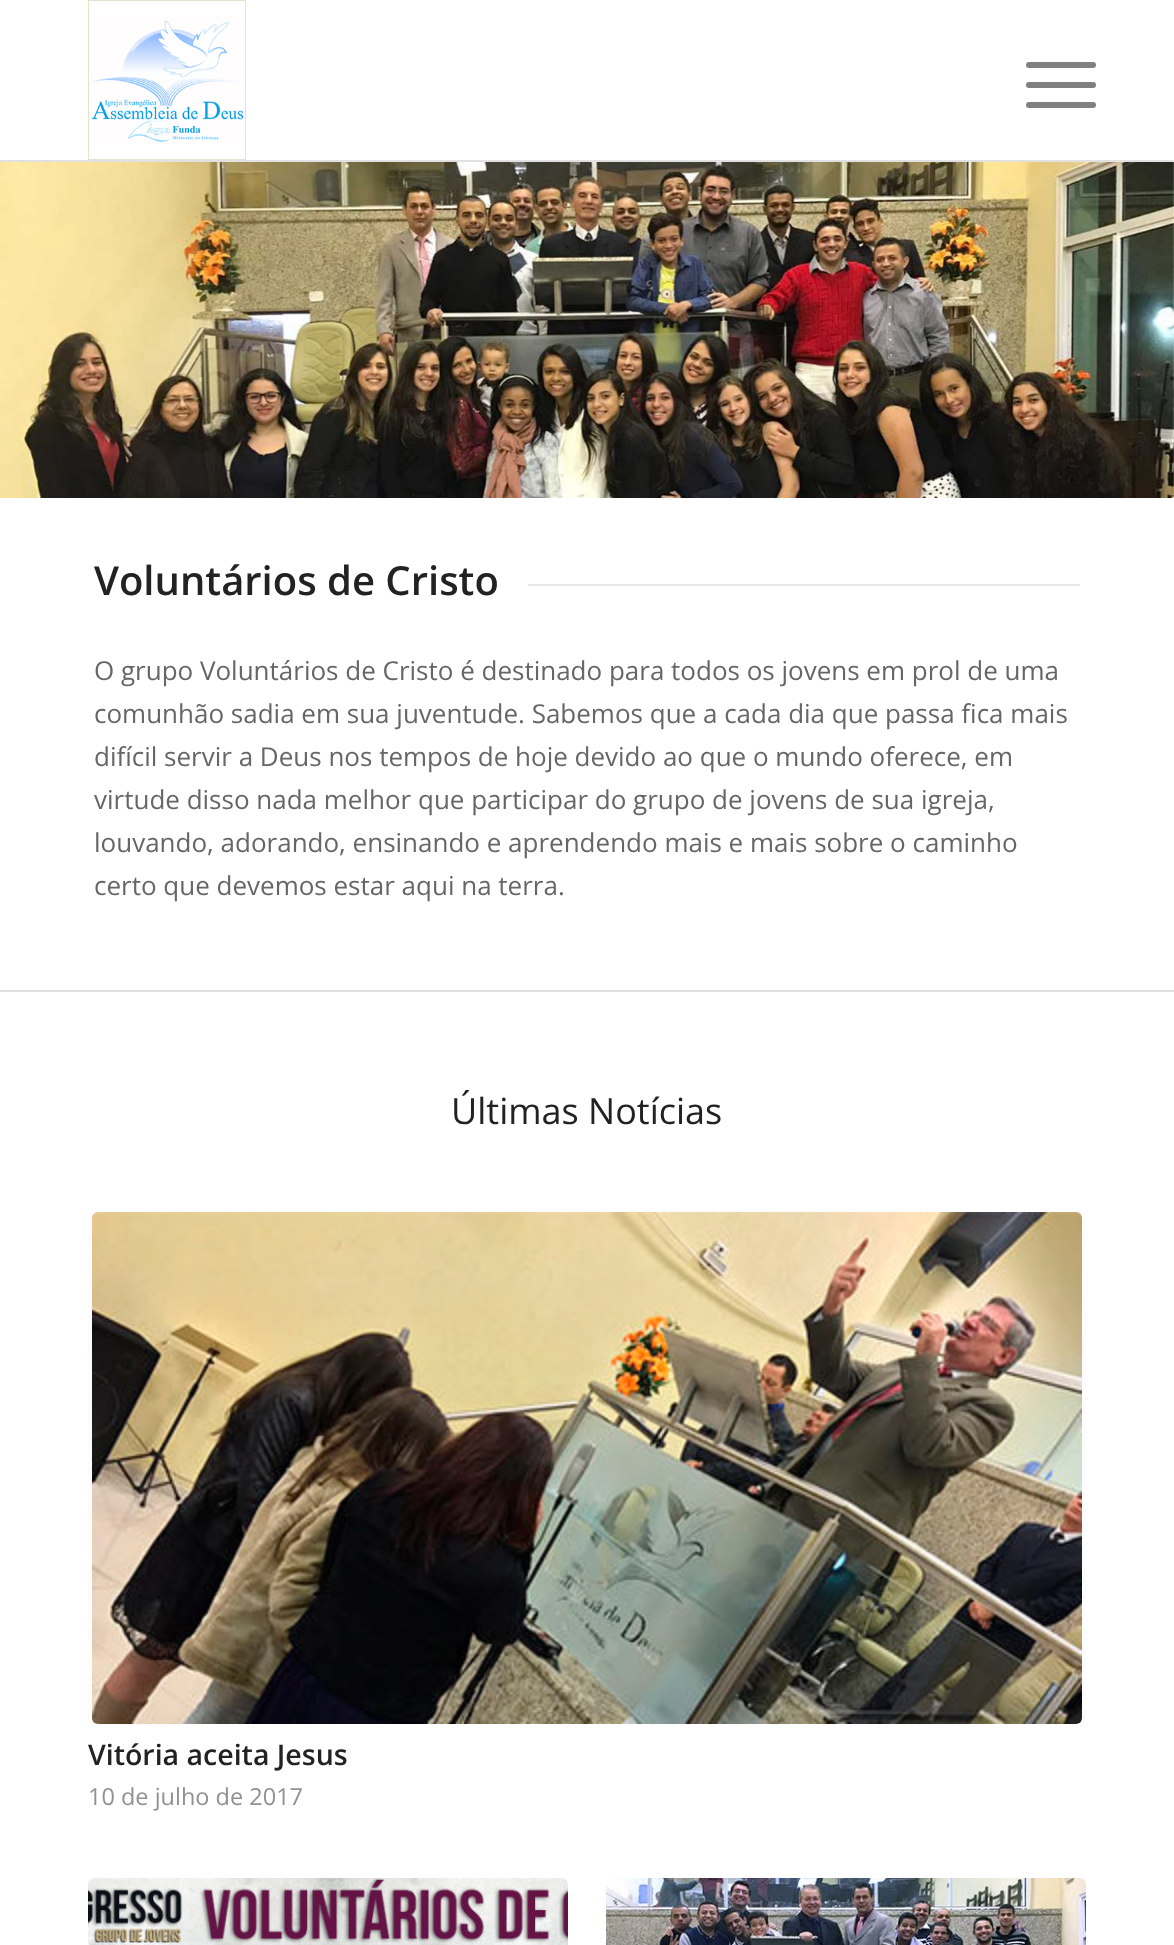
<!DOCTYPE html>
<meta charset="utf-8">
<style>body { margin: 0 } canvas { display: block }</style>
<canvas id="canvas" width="1174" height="1945"></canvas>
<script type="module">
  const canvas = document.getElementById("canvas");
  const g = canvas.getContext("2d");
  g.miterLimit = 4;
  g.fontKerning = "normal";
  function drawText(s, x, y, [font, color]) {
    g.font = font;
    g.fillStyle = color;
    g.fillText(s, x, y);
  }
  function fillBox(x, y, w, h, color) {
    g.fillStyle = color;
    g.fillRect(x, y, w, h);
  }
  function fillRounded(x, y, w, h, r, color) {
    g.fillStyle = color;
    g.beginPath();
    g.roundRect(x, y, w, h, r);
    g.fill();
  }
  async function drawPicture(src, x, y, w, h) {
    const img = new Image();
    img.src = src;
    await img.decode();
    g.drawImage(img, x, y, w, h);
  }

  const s1 = ["600 40px Open Sans", "#222222"];
  const s2 = ["26px Open Sans", "#666666"];
  const s3 = ["36px Open Sans", "#222222"];
  const s4 = ["600 28.5px Open Sans", "#222222"];
  const s5 = ["23.5px Open Sans", "#919191"];

  fillBox(0, 0, 1174, 1945, "#FFFFFF");
  fillBox(0, 160, 1174, 2, "#E1E1E1");
  await drawPicture("pic1.png", 88, 0, 158, 160);
  fillRounded(1026, 82, 70, 6, 3, "#808080");
  fillRounded(1026, 62, 70, 6, 3, "#808080");
  fillRounded(1026, 102, 70, 6, 3, "#808080");
  await drawPicture("pic2.png", 0, 162, 1174, 336);
  drawText("Voluntários de Cristo", 94, 595, s1);
  fillBox(528, 584, 552, 2, "#E8E8E8");
  drawText("O grupo Voluntários de Cristo é destinado para todos os jovens em prol de uma", 94, 680, s2);
  drawText("comunhão sadia em sua juventude. Sabemos que a cada dia que passa fica mais", 94, 723, s2);
  drawText("difícil servir a Deus nos tempos de hoje devido ao que o mundo oferece, em", 94, 766, s2);
  drawText("virtude disso nada melhor que participar do grupo de jovens de sua igreja,", 94, 809, s2);
  drawText("louvando, adorando, ensinando e aprendendo mais e mais sobre o caminho", 94, 852, s2);
  drawText("certo que devemos estar aqui na terra.", 94, 895, s2);
  fillBox(0, 990, 1174, 2, "#E1E1E1");
  drawText("Últimas Notícias", 451, 1124, s3);
  fillRounded(88, 1212, 998, 512, 6, "#FCFCFC");
  await drawPicture("pic3.png", 92, 1212, 990, 512);
  drawText("Vitória aceita Jesus", 88, 1765, s4);
  drawText("10 de julho de 2017", 88, 1805, s5);
  fillRounded(88, 1878, 480, 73, 6, "#FCFCFC");
  await drawPicture("pic4.png", 88, 1878, 480, 67);
  fillRounded(606, 1878, 480, 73, 6, "#FCFCFC");
  await drawPicture("pic5.png", 606, 1878, 480, 67);
</script>
